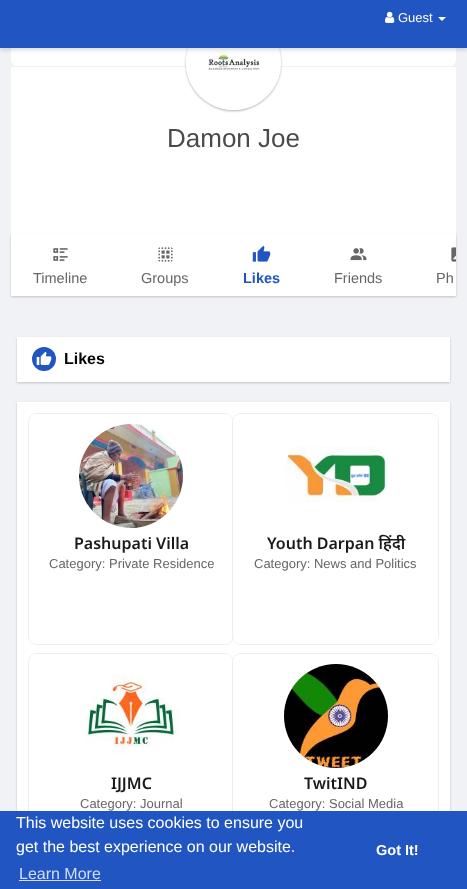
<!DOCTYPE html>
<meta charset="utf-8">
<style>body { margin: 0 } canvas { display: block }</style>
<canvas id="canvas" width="467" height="889"></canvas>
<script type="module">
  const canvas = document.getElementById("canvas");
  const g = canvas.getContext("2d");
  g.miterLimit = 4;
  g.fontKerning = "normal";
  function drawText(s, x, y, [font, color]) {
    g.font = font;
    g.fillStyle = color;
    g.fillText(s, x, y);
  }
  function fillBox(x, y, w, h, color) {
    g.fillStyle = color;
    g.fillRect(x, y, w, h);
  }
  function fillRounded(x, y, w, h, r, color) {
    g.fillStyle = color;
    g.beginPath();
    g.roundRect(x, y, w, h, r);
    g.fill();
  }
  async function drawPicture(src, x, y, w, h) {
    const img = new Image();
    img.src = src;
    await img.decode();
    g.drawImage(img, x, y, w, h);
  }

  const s1 = ["13px Liberation Sans", "#FFFFFF"];
  const s2 = ["26px Liberation Sans", "#4A4A4A"];
  const s3 = ["14.5px Liberation Sans", "#666666"];
  const s4 = ["bold 14.5px Liberation Sans", "#2155C1"];
  const s5 = ["bold 16px Liberation Sans", "#050505"];
  const s6 = ["600 16px Noto Sans", "#1A1A1A"];
  const s7 = ["13px Liberation Sans", "#666666"];
  const s8 = ["16px Liberation Sans", "#FFFFFF"];
  const s9 = ["16px Liberation Sans", "#D3DDF3"];
  const s10 = ["bold 14.5px Liberation Sans", "#FFFFFF"];

  fillBox(0, 0, 467, 889, "#F0F2F5");
  g.fillStyle = "#FFFFFF";
  g.beginPath();
  g.roundRect(11, 45, 445, 22, [0, 0, 8, 8]);
  g.fill();
  g.strokeStyle = "#F1F1F1";
  g.strokeRect(10.5, 66.5, 446, 181);
  fillBox(11, 67, 445, 167, "#FFFFFF");
  g.save();
  g.beginPath();
  g.moveTo(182, 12);
  g.lineTo(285, 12);
  g.lineTo(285, 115);
  g.lineTo(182, 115);
  g.closePath();
  g.moveTo(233.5, 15);
  g.bezierCurveTo(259.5, 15, 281, 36.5, 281, 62.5);
  g.bezierCurveTo(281, 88.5, 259.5, 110, 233.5, 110);
  g.bezierCurveTo(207.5, 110, 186, 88.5, 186, 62.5);
  g.bezierCurveTo(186, 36.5, 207.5, 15, 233.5, 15);
  g.closePath();
  g.clip("evenodd");
  g.fillStyle = "rgba(68, 68, 68, 0.42)";
  g.filter = "blur(1px)";
  g.beginPath();
  g.roundRect(186, 16, 95, 95, 47.5);
  g.fill();
  g.filter = "none";
  g.restore();
  g.beginPath();
  g.arc(233.5, 62.5, 46, 0, Math.PI * 2);
  g.strokeStyle = "#FFFFFF";
  g.lineWidth = 3;
  g.stroke();
  await drawPicture("pic2.png", 189, 48, 89, 22);
  g.fillStyle = "rgba(0, 0, 0, 0.15)";
  g.filter = "blur(2px)";
  g.beginPath();
  g.rect(0, 2, 467, 48);
  g.fill();
  g.filter = "none";
  fillBox(0, 0, 467, 48, "#2155C1");
  await drawPicture("pic1.png", 385, 11, 10, 12);
  drawText("Guest", 398, 22, s1);
  g.beginPath();
  g.moveTo(438, 17);
  g.lineTo(446, 17);
  g.lineTo(442, 21);
  g.closePath();
  g.fill();
  drawText("Damon Joe", 167, 147, s2);
  g.fillStyle = "rgba(0, 0, 0, 0.2)";
  g.filter = "blur(1px)";
  g.beginPath();
  g.rect(11, 235, 445, 62);
  g.fill();
  g.filter = "none";
  fillBox(11, 234, 445, 62, "#FFFFFF");
  await drawPicture("pic3.png", 53, 248, 15, 13);
  drawText("Timeline", 33, 283, s3);
  await drawPicture("pic4.png", 158, 247, 15, 15);
  drawText("Groups", 141, 283, s3);
  await drawPicture("pic5.png", 252, 245, 19, 17);
  drawText("Likes", 243, 283, s4);
  await drawPicture("pic6.png", 350, 248, 17, 13);
  drawText("Friends", 334, 283, s3);
  await drawPicture("pic7.png", 451, 247, 5, 15);
  drawText("Ph", 436, 283, s3);
  g.fillStyle = "rgba(0, 0, 0, 0.2)";
  g.filter = "blur(1px)";
  g.beginPath();
  g.rect(17, 338, 433, 45);
  g.fill();
  g.filter = "none";
  fillBox(17, 337, 433, 45, "#FFFFFF");
  g.fillStyle = "#2155C1";
  g.beginPath();
  g.arc(44, 359, 12, 0, Math.PI * 2);
  g.fill();
  await drawPicture("pic8.png", 36, 351, 16, 14);
  drawText("Likes", 64, 364, s5);
  g.fillStyle = "rgba(0, 0, 0, 0.2)";
  g.filter = "blur(1px)";
  g.beginPath();
  g.rect(17, 403, 433, 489);
  g.fill();
  g.filter = "none";
  fillBox(17, 402, 433, 409, "#FFFFFF");
  g.beginPath();
  g.roundRect(28.5, 413.5, 205, 231, 8.5);
  g.strokeStyle = "#EDEDED";
  g.lineWidth = 1;
  g.stroke();
  fillRounded(29, 414, 204, 230, 8, "#FFFFFF");
  await drawPicture("pic9.png", 79, 424, 104, 104);
  drawText("Pashupati Villa", 74, 549, s6);
  drawText("Category: Private Residence", 49, 568, s7);
  g.beginPath();
  g.roundRect(232.5, 413.5, 206, 231, 8.5);
  g.strokeStyle = "rgba(0, 0, 0, 0.07)";
  g.stroke();
  fillRounded(233, 414, 205, 230, 8, "#FFFFFF");
  await drawPicture("pic10.png", 285, 446, 103, 56);
  drawText("Youth Darpan हिंदी", 267, 549, s6);
  drawText("Category: News and Politics", 254, 568, s7);
  g.beginPath();
  g.roundRect(28.5, 653.5, 205, 231, 8.5);
  g.strokeStyle = "#EDEDED";
  g.stroke();
  fillRounded(29, 654, 204, 230, 8, "#FFFFFF");
  await drawPicture("pic11.png", 79, 674, 100, 79);
  drawText("IJJMC", 111, 789, s6);
  drawText("Category: Journal", 80, 808, s7);
  g.beginPath();
  g.roundRect(232.5, 653.5, 206, 231, 8.5);
  g.strokeStyle = "rgba(0, 0, 0, 0.07)";
  g.stroke();
  fillRounded(233, 654, 205, 230, 8, "#FFFFFF");
  await drawPicture("pic12.png", 284, 664, 104, 104);
  drawText("TwitIND", 304, 789, s6);
  drawText("Category: Social Media", 269, 808, s7);
  fillBox(0, 811, 467, 78, "#2155C1");
  drawText("This website uses cookies to ensure you", 16, 828, s8);
  drawText("get the best experience on our website.", 16, 852, s8);
  drawText("Learn More", 19, 879, s9);
  fillBox(19, 880, 82, 1, "#D3DDF3");
  drawText("Got It!", 376, 855, s10);
</script>
